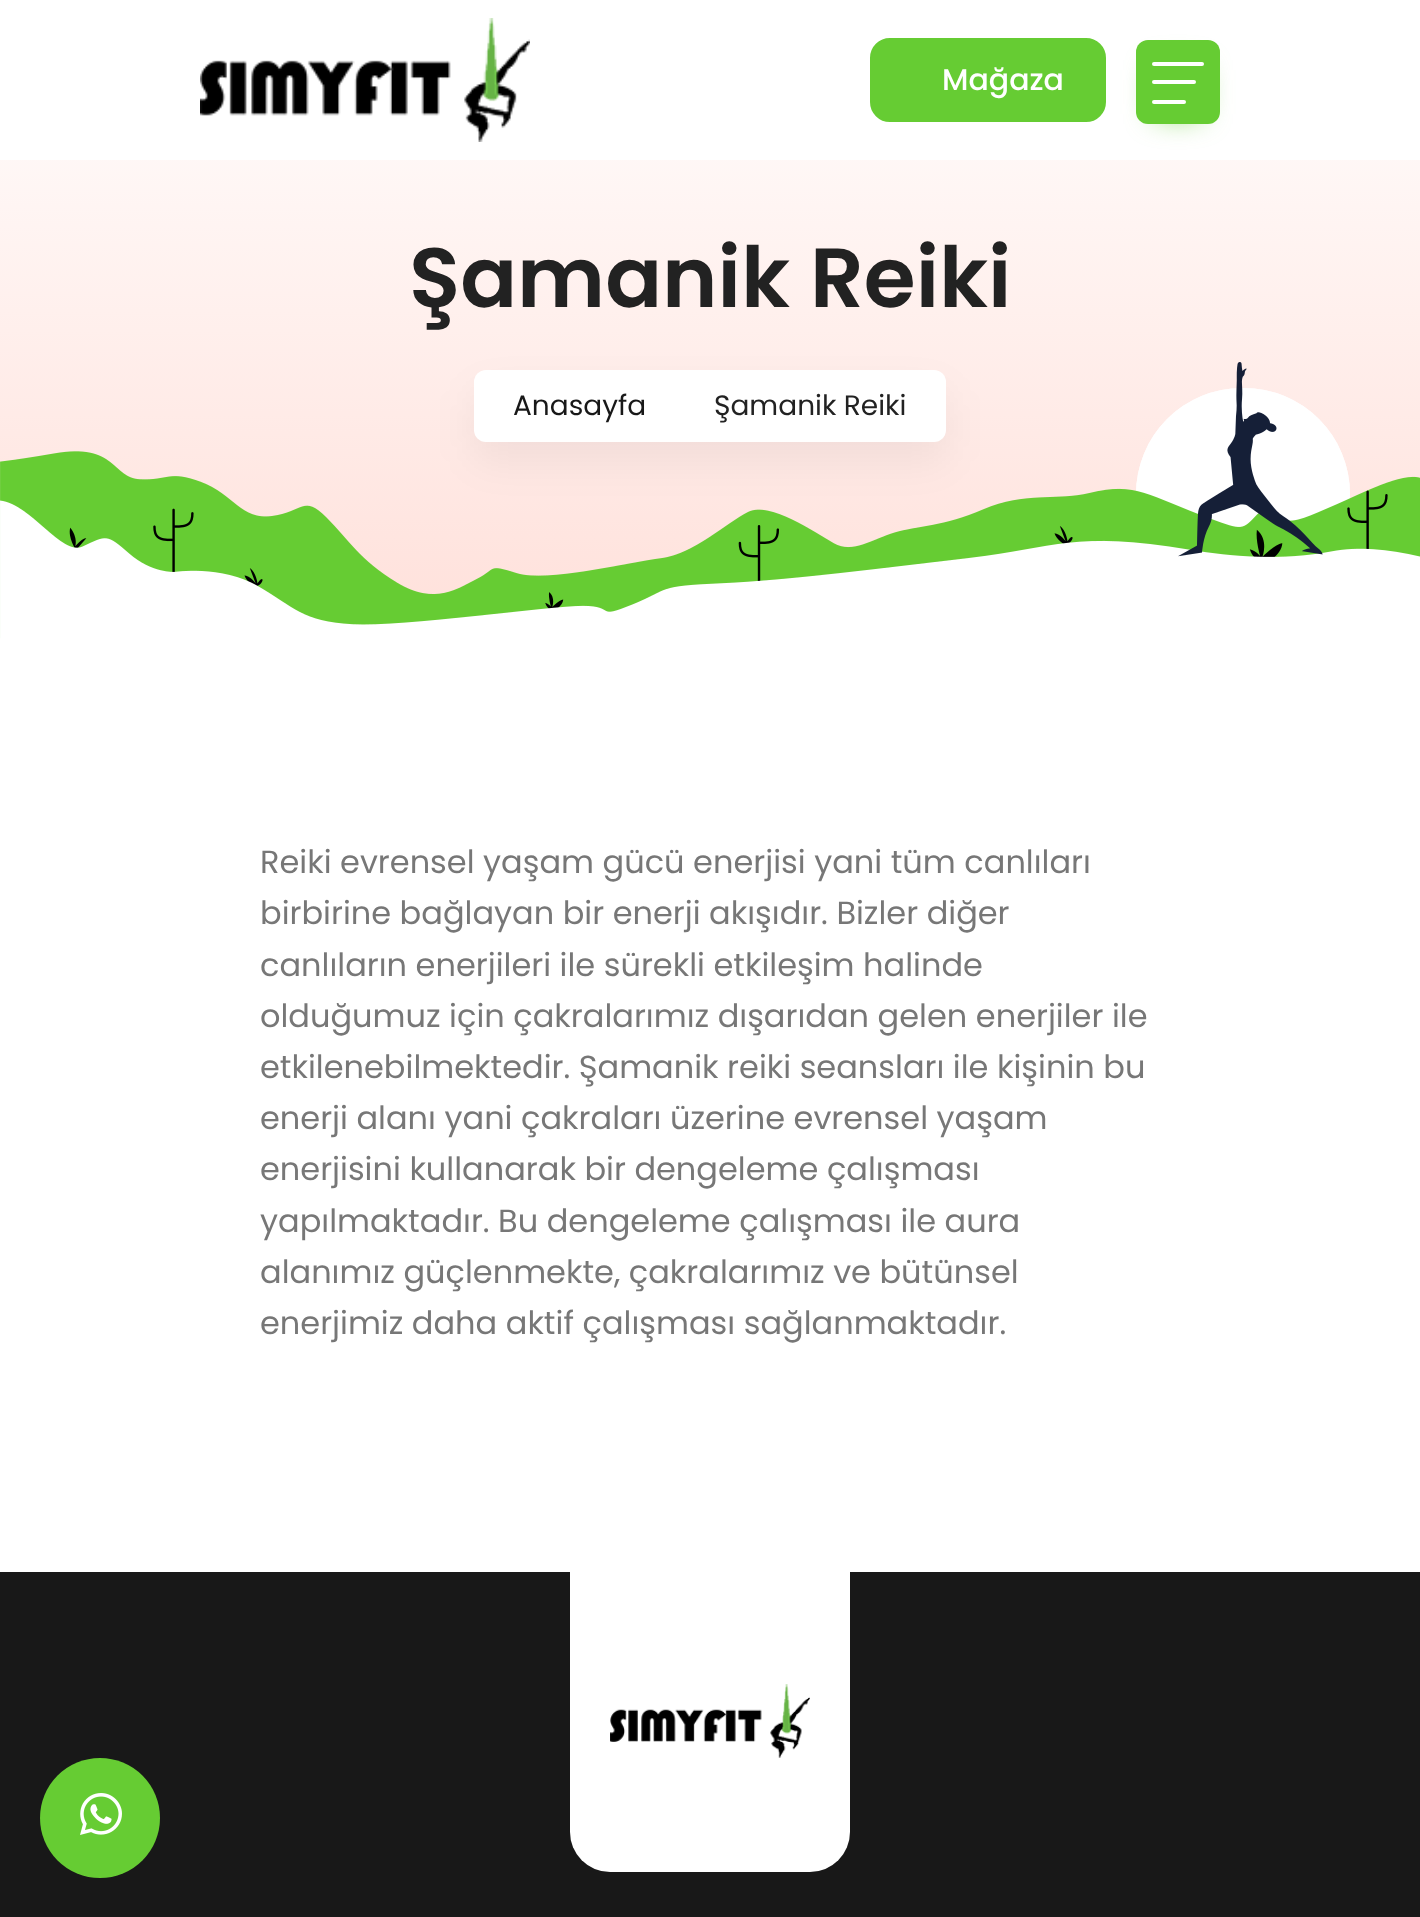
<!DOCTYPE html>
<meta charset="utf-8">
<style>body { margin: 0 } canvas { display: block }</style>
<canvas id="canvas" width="1420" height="1917"></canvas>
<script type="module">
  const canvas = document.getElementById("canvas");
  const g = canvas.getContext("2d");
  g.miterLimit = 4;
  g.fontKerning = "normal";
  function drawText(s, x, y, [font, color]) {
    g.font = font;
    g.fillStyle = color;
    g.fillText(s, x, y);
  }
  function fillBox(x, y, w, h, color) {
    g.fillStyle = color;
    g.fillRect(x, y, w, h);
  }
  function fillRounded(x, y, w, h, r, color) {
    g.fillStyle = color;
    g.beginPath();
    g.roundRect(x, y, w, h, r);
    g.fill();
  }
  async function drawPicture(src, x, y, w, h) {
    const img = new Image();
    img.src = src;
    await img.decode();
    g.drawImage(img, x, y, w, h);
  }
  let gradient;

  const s1 = ["500 30px Poppins", "#FFFFFF"];
  const s2 = ["600 84px Poppins", "#222222"];
  const s3 = ["28px Poppins", "#181818"];
  const s4 = ["28px Poppins", "#222222"];
  const s5 = ["32px Poppins", "#777777"];

  fillBox(0, 0, 1420, 1917, "#FFFFFF");
  await drawPicture("pic1.png", 200, 18, 330, 124);
  g.fillStyle = "#66CC33";
  g.beginPath();
  g.roundRect(871, 39, 234, 82, 19);
  g.fill();
  g.strokeStyle = "#66CC33";
  g.lineWidth = 2;
  g.stroke();
  drawText("Mağaza", 942, 90, s1);
  g.fillStyle = "#66CC33";
  g.filter = "blur(15px)";
  g.beginPath();
  g.rect(1156, 70, 44, 44);
  g.fill();
  g.filter = "none";
  fillRounded(1136, 40, 84, 84, 12, "#66CC33");
  fillRounded(1152, 62, 52, 4, 2, "#FFFFFF");
  fillRounded(1152, 80, 44, 4, 2, "#FFFFFF");
  fillRounded(1152, 100, 34, 4, 2, "#FFFFFF");
  gradient = g.createLinearGradient(710, 0, 710, 640);
  gradient.addColorStop(0, "#FFFFFF");
  gradient.addColorStop(1, "#FFE0DA");
  g.fillStyle = gradient;
  g.fillRect(0, 160, 1420, 480);
  drawText("Şamanik Reiki", 409, 307, s2);
  fillRounded(1136, 388, 214, 212, 106, "#FFFFFF");
  fillRounded(1136, 388, 214, 212, 106, "rgba(255, 255, 255, 0.5)");
  fillRounded(1136, 388, 214, 212, 106, "rgba(255, 255, 255, 0.5)");
  await drawPicture("pic2.png", 0, 362, 1420, 278);
  g.fillStyle = "rgba(0, 0, 0, 0.05)";
  g.filter = "blur(20px)";
  g.beginPath();
  g.roundRect(474, 390, 472, 72, 12);
  g.fill();
  g.filter = "none";
  fillRounded(474, 370, 472, 72, 12, "#FFFFFF");
  drawText("Anasayfa", 513, 415, s3);
  drawText("Şamanik Reiki", 714, 415, s4);
  drawText("Reiki evrensel yaşam gücü enerjisi yani tüm canlıları", 260, 873, s5);
  drawText("birbirine bağlayan bir enerji akışıdır. Bizler diğer", 260, 924, s5);
  drawText("canlıların enerjileri ile sürekli etkileşim halinde", 260, 976, s5);
  drawText("olduğumuz için çakralarımız dışarıdan gelen enerjiler ile", 260, 1027, s5);
  drawText("etkilenebilmektedir. Şamanik reiki seansları ile kişinin bu", 260, 1078, s5);
  drawText("enerji alanı yani çakraları üzerine evrensel yaşam", 260, 1129, s5);
  drawText("enerjisini kullanarak bir dengeleme çalışması", 260, 1180, s5);
  drawText("yapılmaktadır. Bu dengeleme çalışması ile aura", 260, 1232, s5);
  drawText("alanımız güçlenmekte, çakralarımız ve bütünsel", 260, 1283, s5);
  drawText("enerjimiz daha aktif çalışması sağlanmaktadır.", 260, 1334, s5);
  fillBox(0, 1572, 1420, 345, "#181818");
  g.fillStyle = "#66CC33";
  g.beginPath();
  g.arc(100, 1818, 60, 0, Math.PI * 2);
  g.fill();
  await drawPicture("pic3.png", 80, 1793, 42, 42);
  g.fillStyle = "#FFFFFF";
  g.beginPath();
  g.roundRect(570, 1572, 280, 300, [0, 0, 40, 40]);
  g.fill();
  await drawPicture("pic4.png", 610, 1684, 200, 74);
</script>
